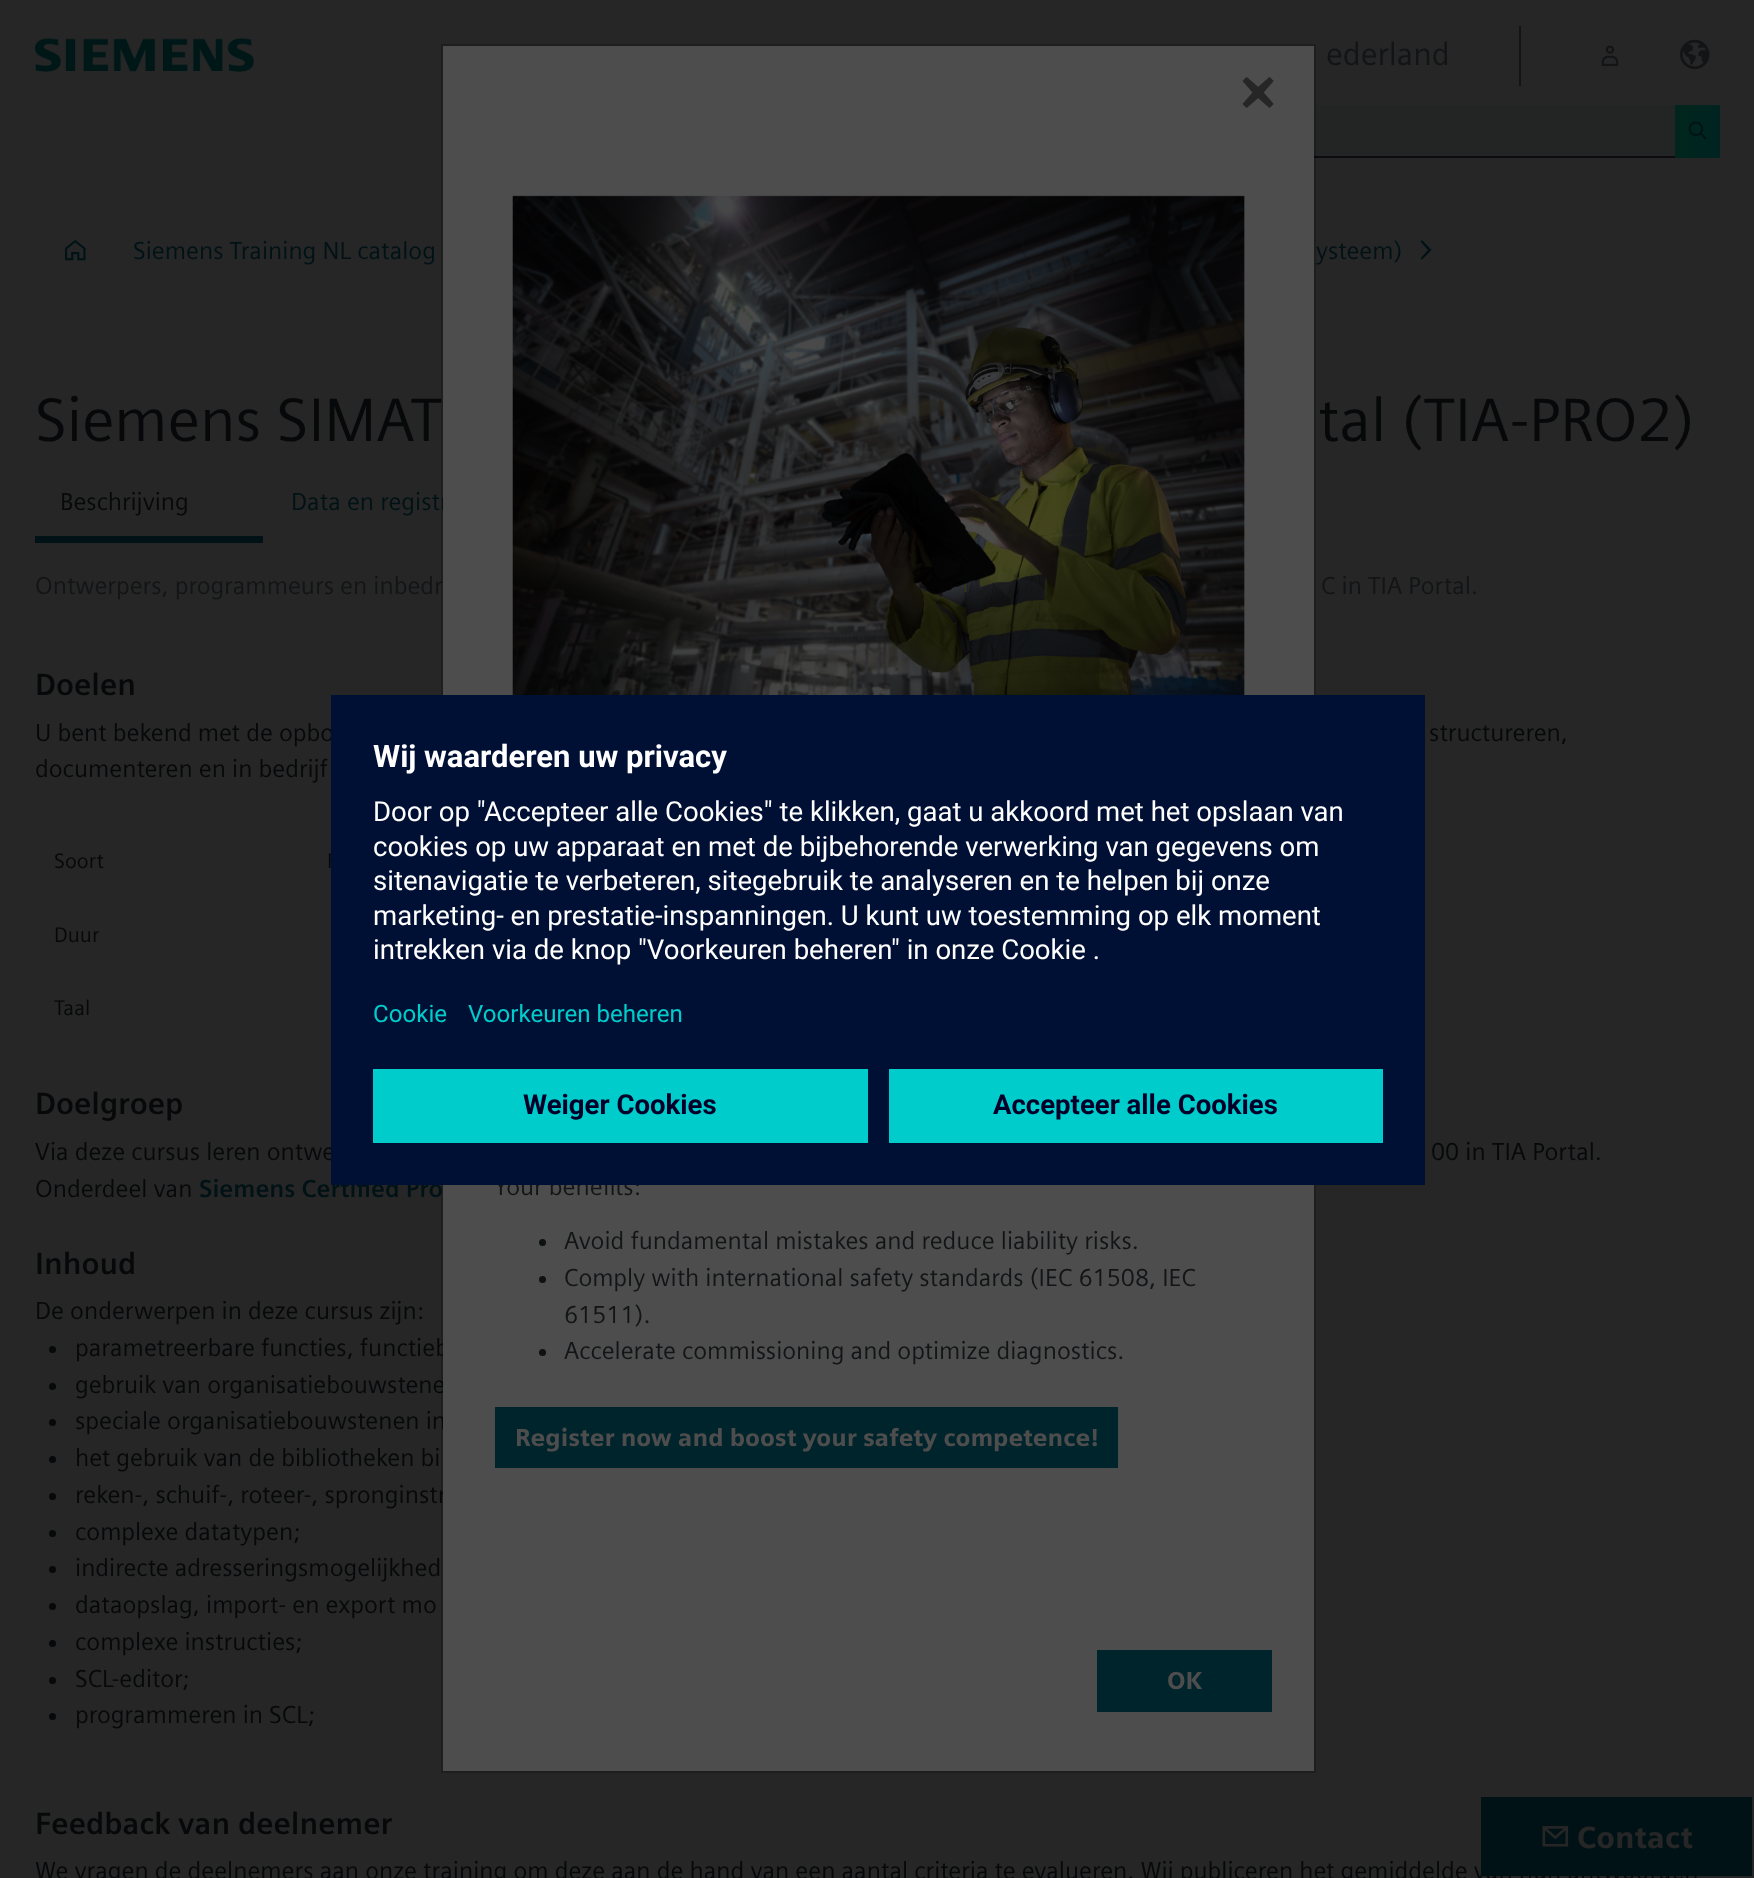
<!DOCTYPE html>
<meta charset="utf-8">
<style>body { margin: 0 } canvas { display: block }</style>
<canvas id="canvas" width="1754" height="1878"></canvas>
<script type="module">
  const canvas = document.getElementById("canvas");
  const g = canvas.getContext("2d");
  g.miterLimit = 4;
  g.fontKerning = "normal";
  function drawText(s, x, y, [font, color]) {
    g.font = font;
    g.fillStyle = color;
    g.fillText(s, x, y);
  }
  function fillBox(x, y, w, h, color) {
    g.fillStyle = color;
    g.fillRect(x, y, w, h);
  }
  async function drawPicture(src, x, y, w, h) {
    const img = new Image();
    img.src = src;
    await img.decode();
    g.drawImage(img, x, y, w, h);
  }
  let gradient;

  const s1 = ["32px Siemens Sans", "#121416"];
  const s2 = ["24.5px Siemens Sans", "#001216"];
  const s3 = ["61.25px Siemens Sans", "#070809"];
  const s4 = ["24.5px Siemens Sans", "#070809"];
  const s5 = ["24.5px Siemens Sans", "#121416"];
  const s6 = ["bold 30.6px Siemens Sans", "#070809"];
  const s7 = ["21px Siemens Sans", "#070809"];
  const s8 = ["bold 24.5px Siemens Sans", "#001216"];
  const s9 = ["bold 31px Roboto", "#FFFFFF"];
  const s10 = ["27.55px Roboto", "#FFFFFF"];
  const s11 = ["24.1px Roboto", "#00CCCC"];
  const s12 = ["bold 27.55px Roboto", "#000028"];
  const s13 = ["900 24.5px Siemens Sans", "#4D4D4D"];
  const s14 = ["900 30.6px Siemens Sans", "#262626"];

  fillBox(0, 0, 1754, 1878, "#262626");
  await drawPicture("pic1.png", 35, 38, 219, 34);
  fillBox(1519, 26, 2, 60, "#121416");
  drawText("ederland", 1326, 65, s1);
  await drawPicture("pic2.png", 1601, 45, 18, 21);
  await drawPicture("pic3.png", 1680, 39, 30, 31);
  fillBox(1314, 105, 361, 51, "#232525");
  fillBox(1314, 156, 363, 2, "#0B0B10");
  gradient = g.createLinearGradient(1675, 131, 1720, 131);
  gradient.addColorStop(0, "#00261C");
  gradient.addColorStop(1, "#002321");
  g.fillStyle = gradient;
  g.fillRect(1675, 105, 45, 53);
  await drawPicture("pic4.png", 1688, 121, 19, 19);
  await drawPicture("pic5.png", 65, 239, 21, 22);
  drawText("Siemens Training NL catalog", 133, 259, s2);
  drawText("ysteem)", 1316, 259, s2);
  g.beginPath();
  g.moveTo(1431.5, 250);
  g.lineTo(1422, 240);
  g.lineTo(1420.5, 241.5);
  g.lineTo(1428, 250);
  g.lineTo(1420.5, 258.5);
  g.lineTo(1422, 259.5);
  g.closePath();
  g.fill();
  drawText("Siemens SIMAT", 35, 441, s3);
  drawText("tal (TIA-PRO2)", 1318, 441, s3);
  fillBox(35, 536, 228, 7, "#001216");
  drawText("Beschrijving", 60, 510, s4);
  drawText("Data en registr", 291, 510, s2);
  drawText("Ontwerpers, programmeurs en inbedr", 35, 594, s5);
  drawText("C in TIA Portal.", 1321, 594, s5);
  drawText("Doelen", 35, 695, s6);
  drawText("U bent bekend met de opbo", 35, 741, s4);
  drawText("structureren,", 1429, 741, s4);
  drawText("documenteren en in bedrijf", 35, 777, s4);
  drawText("Soort", 54, 868, s7);
  drawText("F", 327, 868, s7);
  drawText("Duur", 54, 942, s7);
  drawText("Taal", 54, 1015, s7);
  drawText("Doelgroep", 35, 1114, s6);
  drawText("Via deze cursus leren ontwe", 35, 1160, s4);
  drawText("00 in TIA Portal.", 1431, 1160, s4);
  drawText("Onderdeel van", 35, 1197, s4);
  drawText("Siemens Certified Pro", 199, 1197, s8);
  drawText("Inhoud", 35, 1274, s6);
  drawText("De onderwerpen in deze cursus zijn:", 35, 1319, s4);
  g.beginPath();
  g.arc(52.5, 1349.5, 3.5, 0, Math.PI * 2);
  g.fill();
  drawText("parametreerbare functies, functieb", 75, 1356, s4);
  g.beginPath();
  g.arc(52.5, 1386.5, 3.5, 0, Math.PI * 2);
  g.fill();
  drawText("gebruik van organisatiebouwstene", 75, 1393, s4);
  g.beginPath();
  g.arc(52.5, 1422.5, 3.5, 0, Math.PI * 2);
  g.fill();
  drawText("speciale organisatiebouwstenen in", 75, 1429, s4);
  g.beginPath();
  g.arc(52.5, 1459.5, 3.5, 0, Math.PI * 2);
  g.fill();
  drawText("het gebruik van de bibliotheken bi", 75, 1466, s4);
  g.beginPath();
  g.arc(52.5, 1496.5, 3.5, 0, Math.PI * 2);
  g.fill();
  drawText("reken-, schuif-, roteer-, spronginstr", 75, 1503, s4);
  g.beginPath();
  g.arc(52.5, 1533.5, 3.5, 0, Math.PI * 2);
  g.fill();
  drawText("complexe datatypen;", 75, 1540, s4);
  g.beginPath();
  g.arc(52.5, 1569.5, 3.5, 0, Math.PI * 2);
  g.fill();
  drawText("indirecte adresseringsmogelijkhed", 75, 1576, s4);
  g.beginPath();
  g.arc(52.5, 1606.5, 3.5, 0, Math.PI * 2);
  g.fill();
  drawText("dataopslag, import- en export mo", 75, 1613, s4);
  g.beginPath();
  g.arc(52.5, 1643.5, 3.5, 0, Math.PI * 2);
  g.fill();
  drawText("complexe instructies;", 75, 1650, s4);
  g.beginPath();
  g.arc(52.5, 1680.5, 3.5, 0, Math.PI * 2);
  g.fill();
  drawText("SCL-editor;", 75, 1687, s4);
  g.beginPath();
  g.arc(52.5, 1716.5, 3.5, 0, Math.PI * 2);
  g.fill();
  drawText("programmeren in SCL;", 75, 1723, s4);
  fillBox(443, 46, 871, 1725, "#4D4D4D");
  g.strokeStyle = "rgba(0, 0, 0, 0.2)";
  g.lineWidth = 2;
  g.strokeRect(442, 45, 873, 1727);
  drawText("Your benefits:", 494, 1195, s5);
  fillBox(331, 695, 1094, 490, "#001034");
  drawText("Wij waarderen uw privacy", 373, 767, s9);
  drawText("Door op \"Accepteer alle Cookies\" te klikken, gaat u akkoord met het opslaan van", 373, 821, s10);
  drawText("cookies op uw apparaat en met de bijbehorende verwerking van gegevens om", 373, 856, s10);
  drawText("sitenavigatie te verbeteren, sitegebruik te analyseren en te helpen bij onze", 373, 890, s10);
  drawText("marketing- en prestatie-inspanningen. U kunt uw toestemming op elk moment", 373, 925, s10);
  drawText("intrekken via de knop \"Voorkeuren beheren\" in onze Cookie .", 373, 959, s10);
  drawText("Cookie", 373, 1022, s11);
  drawText("Voorkeuren beheren", 468, 1022, s11);
  fillBox(373, 1069, 495, 74, "#00CCCC");
  drawText("Weiger Cookies", 523, 1114, s12);
  fillBox(889, 1069, 494, 74, "#00CCCC");
  drawText("Accepteer alle Cookies", 993, 1114, s12);
  await drawPicture("pic6.png", 1242, 77, 32, 31);
  await drawPicture("pic7.png", 512, 195, 733, 500);
  g.fillStyle = "#0E1112";
  g.beginPath();
  g.arc(542.5, 1242.5, 3.5, 0, Math.PI * 2);
  g.fill();
  drawText("Avoid fundamental mistakes and reduce liability risks.", 564, 1249, s5);
  g.fillStyle = "#0E1112";
  g.beginPath();
  g.arc(542.5, 1279.5, 3.5, 0, Math.PI * 2);
  g.fill();
  drawText("Comply with international safety standards (IEC 61508, IEC", 564, 1286, s5);
  drawText("61511).", 564, 1323, s5);
  g.fillStyle = "#0E1112";
  g.beginPath();
  g.arc(542.5, 1352.5, 3.5, 0, Math.PI * 2);
  g.fill();
  drawText("Accelerate commissioning and optimize diagnostics.", 564, 1359, s5);
  fillBox(495, 1407, 623, 61, "#00242C");
  drawText("Register now and boost your safety competence!", 515, 1446, s13);
  fillBox(1097, 1650, 175, 62, "#00242C");
  drawText("OK", 1167, 1689, s13);
  drawText("Feedback van deelnemer", 35, 1834, s6);
  drawText("We vragen de deelnemers aan onze training om deze aan de hand van een aantal criteria te evalueren. Wij publiceren het gemiddelde van hun antwoorden", 35, 1879, s4);
  fillBox(1481, 1797, 271, 79, "#001216");
  await drawPicture("pic8.png", 1542, 1826, 27, 21);
  drawText("Contact", 1577, 1848, s14);
</script>
